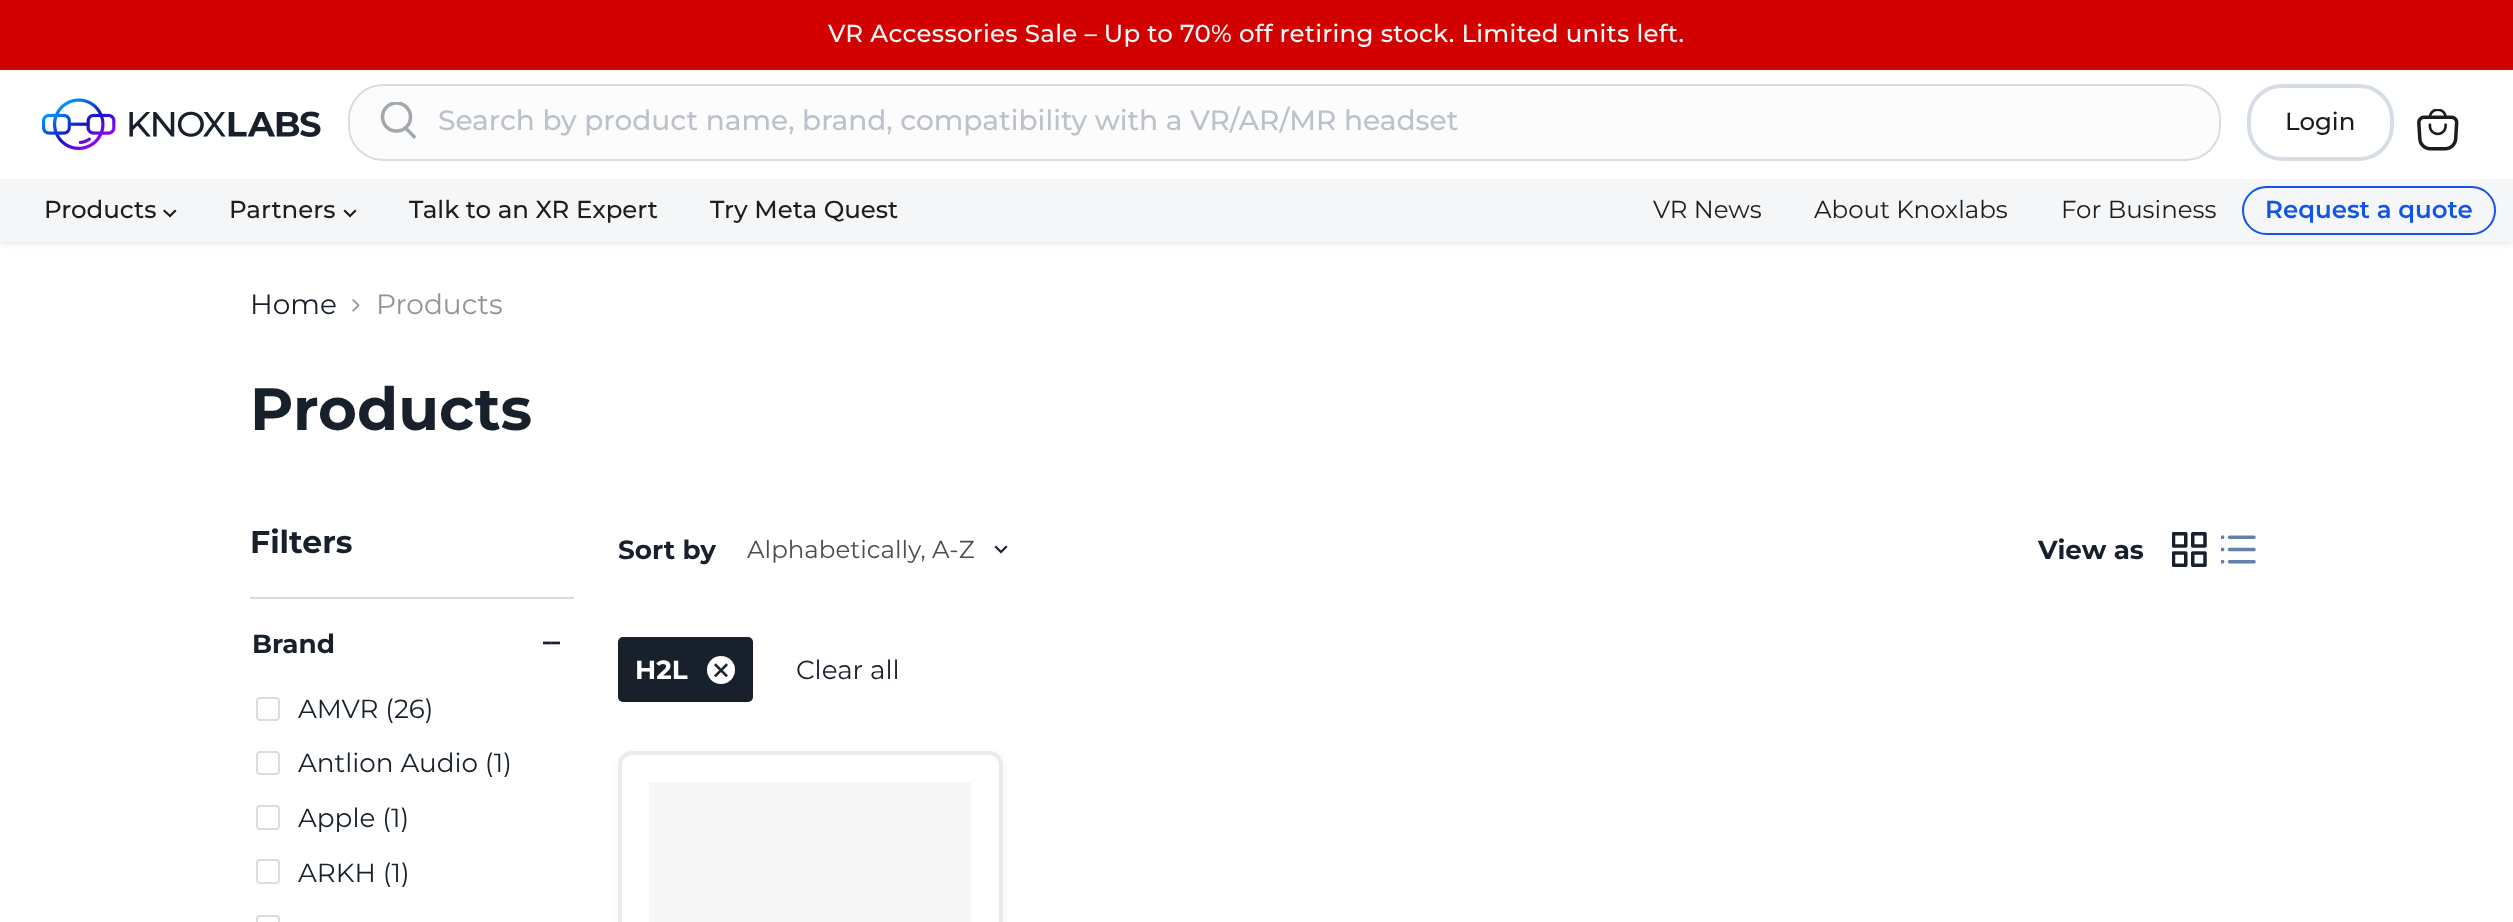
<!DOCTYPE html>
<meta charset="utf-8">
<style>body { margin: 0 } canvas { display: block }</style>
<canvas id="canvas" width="2513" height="922"></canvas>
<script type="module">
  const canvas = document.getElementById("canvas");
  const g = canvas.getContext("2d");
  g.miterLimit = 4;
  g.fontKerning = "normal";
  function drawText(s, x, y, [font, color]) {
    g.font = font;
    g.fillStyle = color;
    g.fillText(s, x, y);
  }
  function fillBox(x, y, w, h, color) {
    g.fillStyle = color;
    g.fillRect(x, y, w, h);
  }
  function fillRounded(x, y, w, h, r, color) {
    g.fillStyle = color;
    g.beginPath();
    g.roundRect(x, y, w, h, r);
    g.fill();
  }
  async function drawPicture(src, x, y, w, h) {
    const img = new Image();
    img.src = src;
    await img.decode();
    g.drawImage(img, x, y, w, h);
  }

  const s1 = ["500 24.5px Montserrat", "#F4F6F8"];
  const s2 = ["500 28px Montserrat", "#BBC2CB"];
  const s3 = ["500 24.5px Montserrat", "#1D1D1D"];
  const s4 = ["24.5px Montserrat", "#1D1D1D"];
  const s5 = ["600 24.5px Montserrat", "#1254E3"];
  const s6 = ["28px Montserrat", "#18202C"];
  const s7 = ["28px Montserrat", "#949494"];
  const s8 = ["bold 59.5px Montserrat", "#18202C"];
  const s9 = ["bold 31.5px Montserrat", "#18202C"];
  const s10 = ["bold 26.25px Montserrat", "#18202C"];
  const s11 = ["26.25px Montserrat", "#18202C"];
  const s12 = ["24.5px Montserrat", "#4D4D4D"];
  const s13 = ["bold 26.25px Montserrat", "#FFFFFF"];

  fillBox(0, 0, 2513, 922, "#FFFFFF");
  fillBox(0, 0, 2513, 70, "#D30000");
  g.letterSpacing = "0.28px";
  drawText("VR Accessories Sale – Up to 70% off retiring stock. Limited units left.", 828, 42, s1);
  g.fillStyle = "rgba(128, 128, 128, 0.25)";
  g.filter = "blur(3.5px)";
  g.beginPath();
  g.rect(0, 72, 2513, 171);
  g.fill();
  g.filter = "none";
  fillBox(0, 70, 2513, 109, "#FFFFFF");
  await drawPicture("pic1.png", 42, 98, 279, 53);
  g.fillStyle = "#FCFCFC";
  g.beginPath();
  g.roundRect(349, 85, 1871, 75, 34);
  g.fill();
  g.strokeStyle = "#D7DDE5";
  g.lineWidth = 2;
  g.stroke();
  g.save();
  g.beginPath();
  g.roundRect(378, 96, 42, 53, [0, 26, 26, 0]);
  g.clip();
  g.beginPath();
  g.moveTo(415.5, 138);
  g.lineTo(406, 128.5);
  g.strokeStyle = "#A2A8B0";
  g.lineWidth = 3.5;
  g.lineCap = "round";
  g.stroke();
  g.restore();
  g.save();
  g.beginPath();
  g.rect(378, 102, 42, 42);
  g.clip();
  g.beginPath();
  g.arc(396.5, 117, 14, 0, Math.PI * 2);
  g.strokeStyle = "#A2A8B0";
  g.lineWidth = 3.5;
  g.stroke();
  g.restore();
  g.letterSpacing = "0px";
  drawText("Search by product name, brand, compatibility with a VR/AR/MR headset", 438, 130, s2);
  g.beginPath();
  g.roundRect(2249, 86, 143, 73, 33);
  g.lineWidth = 4;
  g.stroke();
  drawText("Login", 2285, 130, s3);
  await drawPicture("pic2.png", 2417, 109, 42, 42);
  fillBox(0, 179, 2513, 63, "#F4F6F8");
  drawText("Products", 44, 218, s3);
  g.beginPath();
  g.moveTo(170, 216);
  g.lineTo(175, 211);
  g.moveTo(170, 216);
  g.lineTo(164.5, 211);
  g.strokeStyle = "#1D1D1D";
  g.lineWidth = 2.2;
  g.lineCap = "square";
  g.stroke();
  drawText("Partners", 229, 218, s3);
  g.beginPath();
  g.moveTo(350, 216);
  g.lineTo(355, 211);
  g.moveTo(350, 216);
  g.lineTo(345, 211);
  g.stroke();
  drawText("Talk to an XR Expert", 409, 218, s3);
  drawText("Try Meta Quest", 710, 218, s3);
  drawText("VR News", 1653, 218, s4);
  drawText("About Knoxlabs", 1814, 218, s4);
  drawText("For Business", 2061, 218, s4);
  g.beginPath();
  g.roundRect(2243, 187, 252, 47, 23.5);
  g.strokeStyle = "#1254E3";
  g.lineWidth = 2;
  g.stroke();
  drawText("Request a quote", 2265, 218, s5);
  drawText("Home", 250, 314, s6);
  await drawPicture("pic3.png", 352, 299, 8, 13);
  drawText("Products", 376, 314, s7);
  drawText("Products", 250, 430, s8);
  drawText("Filters", 250, 553, s9);
  fillBox(250, 597, 324, 2, "#D9D9D9");
  drawText("Brand", 252, 653, s10);
  await drawPicture("pic4.png", 543, 641, 17, 4);
  g.beginPath();
  g.roundRect(257, 698, 22, 22, 3);
  g.strokeStyle = "#DDDDDD";
  g.stroke();
  drawText("AMVR (26)", 298, 718, s11);
  g.beginPath();
  g.roundRect(257, 752, 22, 22, 3);
  g.stroke();
  drawText("Antlion Audio (1)", 298, 772, s11);
  g.beginPath();
  g.roundRect(257, 806, 22, 23, 3);
  g.stroke();
  drawText("Apple (1)", 298, 827, s11);
  g.beginPath();
  g.roundRect(257, 860, 22, 23, 3);
  g.stroke();
  drawText("ARKH (1)", 298, 882, s11);
  g.beginPath();
  g.roundRect(257, 916, 22, 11, 3);
  g.stroke();
  drawText("Sort by", 618, 559, s10);
  drawText("Alphabetically, A-Z", 747, 558, s12);
  g.beginPath();
  g.moveTo(1001, 552);
  g.lineTo(1006, 547);
  g.moveTo(1001, 552);
  g.lineTo(996, 547);
  g.strokeStyle = "#18202C";
  g.lineWidth = 2.2;
  g.stroke();
  drawText("View as", 2038, 559, s10);
  await drawPicture("pic5.png", 2172, 532, 35, 35);
  await drawPicture("pic6.png", 2221, 535, 35, 29);
  fillRounded(618, 637, 135, 65, 5, "#18202C");
  drawText("H2L", 635, 679, s13);
  g.beginPath();
  g.arc(721, 670, 14, 0, Math.PI * 2);
  g.fill();
  await drawPicture("pic7.png", 714, 663, 14, 14);
  drawText("Clear all", 796, 679, s11);
  g.fillStyle = "rgba(128, 128, 128, 0.11)";
  g.filter = "blur(3.5px)";
  g.beginPath();
  g.roundRect(618, 753, 385, 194, 14);
  g.fill();
  g.filter = "none";
  g.fillStyle = "#FFFFFF";
  g.beginPath();
  g.roundRect(620, 753, 381, 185, 12);
  g.fill();
  g.strokeStyle = "#EBEBEB";
  g.lineWidth = 4;
  g.stroke();
  fillBox(649, 782, 322, 140, "#F6F6F7");
</script>
